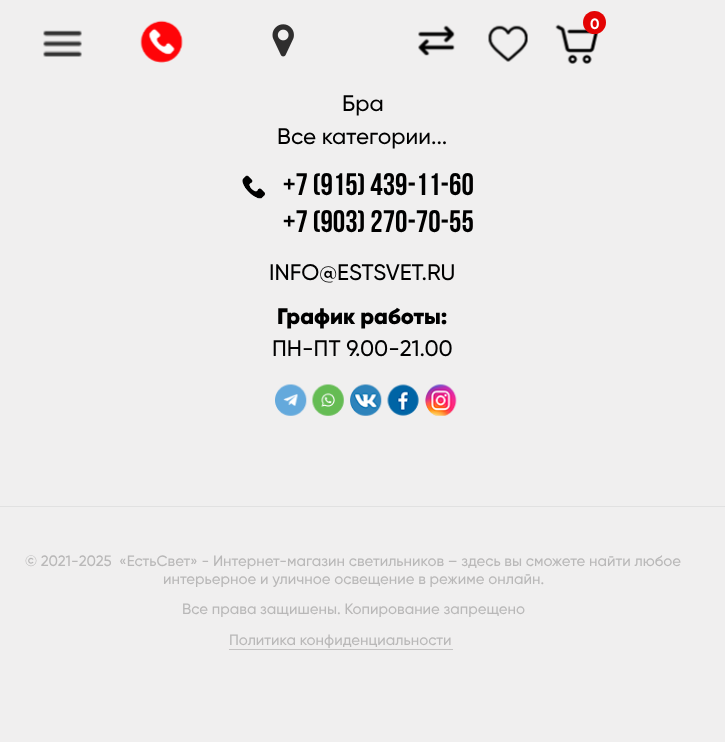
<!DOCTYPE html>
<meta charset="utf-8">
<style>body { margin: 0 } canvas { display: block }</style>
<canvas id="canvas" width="725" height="742"></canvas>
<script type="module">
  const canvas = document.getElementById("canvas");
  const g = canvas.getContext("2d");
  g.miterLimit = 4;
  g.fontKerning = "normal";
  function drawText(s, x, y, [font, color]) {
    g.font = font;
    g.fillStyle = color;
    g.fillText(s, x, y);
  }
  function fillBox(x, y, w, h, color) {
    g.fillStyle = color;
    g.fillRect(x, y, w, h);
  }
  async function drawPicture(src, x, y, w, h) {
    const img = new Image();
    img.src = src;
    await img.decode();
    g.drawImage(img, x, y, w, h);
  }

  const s1 = ["bold 15px Gilroy", "#FFFFFF"];
  const s2 = ["500 22.5px Gilroy", "#000000"];
  const s3 = ["bold 31.25px Bebas Neue", "#000000"];
  const s4 = ["900 22.5px Gilroy", "#000000"];
  const s5 = ["500 15px Gilroy", "#B9B8B8"];

  fillBox(0, 0, 725, 742, "#F0EFEF");
  await drawPicture("pic1.png", 43, 30, 39, 27);
  await drawPicture("pic2.png", 140, 20, 43, 43);
  await drawPicture("pic3.png", 272, 24, 22, 33);
  await drawPicture("pic4.png", 418, 25, 37, 31);
  await drawPicture("pic5.png", 488, 25, 40, 37);
  await drawPicture("pic6.png", 555, 24, 43, 40);
  g.fillStyle = "#E40404";
  g.beginPath();
  g.arc(594.5, 22.5, 11.5, 0, Math.PI * 2);
  g.fill();
  drawText("0", 590, 29, s1);
  drawText("Бра", 342, 111, s2);
  drawText("Все категории...", 277, 144, s2);
  await drawPicture("pic7.png", 242, 175, 23, 24);
  drawText("+7 (915) 439-11-60", 283, 195, s3);
  drawText("+7 (903) 270-70-55", 283, 232, s3);
  drawText("INFO@ESTSVET.RU", 269, 280, s2);
  drawText("График работы:", 277, 324, s4);
  drawText("ПН-ПТ 9.00-21.00", 272, 356, s2);
  await drawPicture("pic8.png", 275, 384, 32, 32);
  await drawPicture("pic9.png", 312, 384, 32, 32);
  await drawPicture("pic10.png", 350, 384, 32, 32);
  await drawPicture("pic11.png", 387, 384, 32, 32);
  await drawPicture("pic12.png", 425, 384, 32, 32);
  fillBox(0, 506, 725, 1, "#E1E1E1");
  drawText("© 2021-2025  «ЕстьСвет» - Интернет-магазин светильников – здесь вы сможете найти любое", 25, 566, s5);
  drawText("интерьерное и уличное освещение в режиме онлайн.", 163, 584, s5);
  drawText("Все права защишены. Копирование запрещено", 182, 614, s5);
  drawText("Политика конфиденциальности", 229, 645, s5);
  fillBox(229, 649, 224, 1, "#C4C3C3");
</script>
